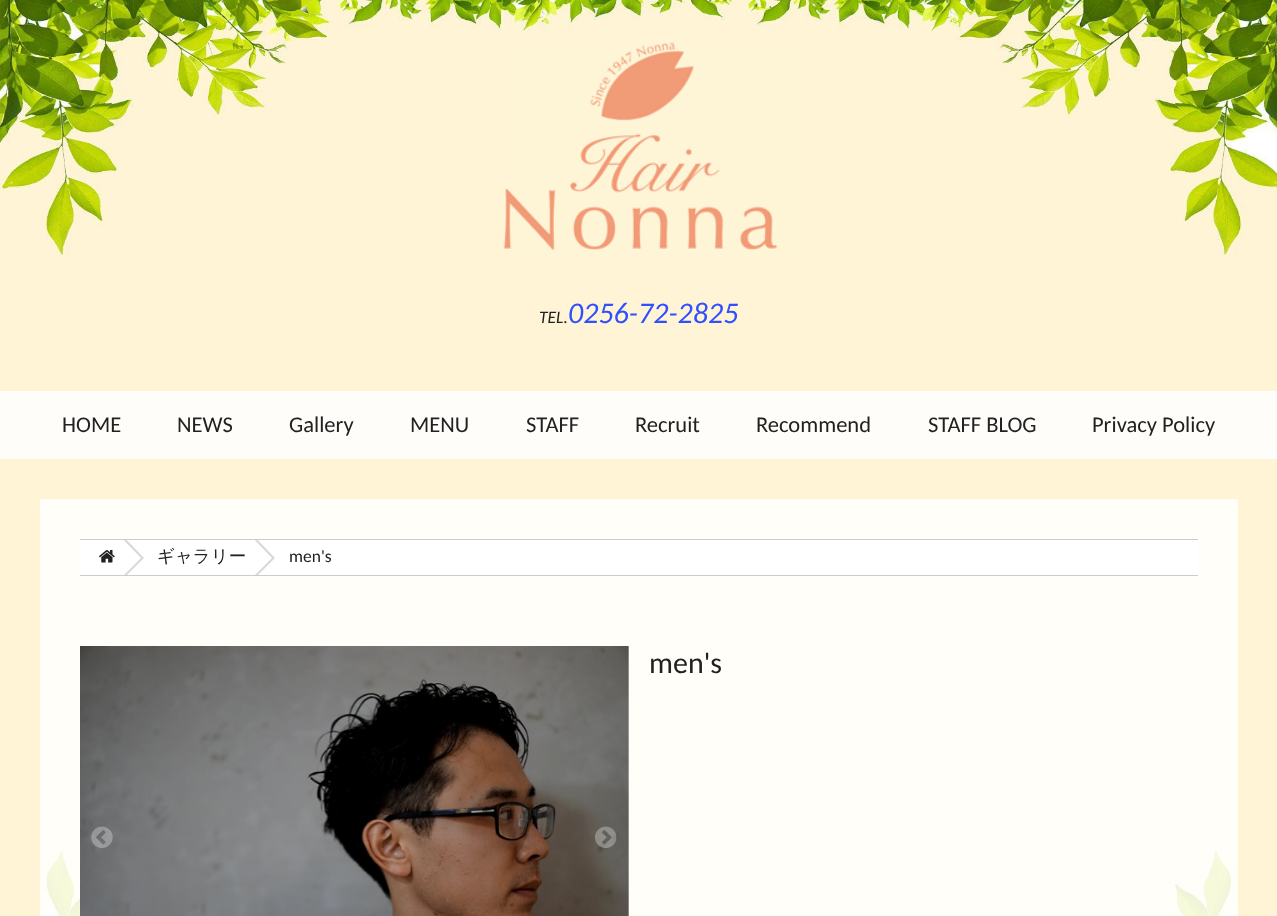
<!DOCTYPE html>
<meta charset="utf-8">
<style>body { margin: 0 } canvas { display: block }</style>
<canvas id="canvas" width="1277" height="916"></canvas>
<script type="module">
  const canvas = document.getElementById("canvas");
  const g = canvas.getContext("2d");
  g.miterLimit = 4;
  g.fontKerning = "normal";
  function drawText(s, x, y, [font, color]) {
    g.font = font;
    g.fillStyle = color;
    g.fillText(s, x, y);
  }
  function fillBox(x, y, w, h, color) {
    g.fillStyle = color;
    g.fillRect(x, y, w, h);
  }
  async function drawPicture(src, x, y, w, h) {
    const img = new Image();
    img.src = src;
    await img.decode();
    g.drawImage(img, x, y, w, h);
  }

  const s1 = ["italic 17.5px Carlito", "#212121"];
  const s2 = ["italic 30px Carlito", "#304FFE"];
  const s3 = ["22.5px Carlito", "#212121"];
  const s4 = ["500 17.5px WenQuanYi Zen Hei", "#212121"];
  const s5 = ["17.5px Carlito", "#212121"];
  const s6 = ["30px Carlito", "#212121"];

  fillBox(0, 0, 1277, 916, "#FFFFFF");
  await drawPicture("pic1.png", 0, 0, 1277, 916);
  await drawPicture("pic2.png", 503, 40, 292, 215);
  drawText("TEL.", 539, 323, s1);
  drawText("0256-72-2825", 568, 323, s2);
  fillBox(0, 391, 1277, 68, "#FFFDF9");
  drawText("HOME", 62, 432, s3);
  drawText("NEWS", 177, 432, s3);
  drawText("Gallery", 289, 432, s3);
  drawText("MENU", 410, 432, s3);
  drawText("STAFF", 526, 432, s3);
  drawText("Recruit", 635, 432, s3);
  drawText("Recommend", 756, 432, s3);
  drawText("STAFF BLOG", 928, 432, s3);
  drawText("Privacy Policy", 1092, 432, s3);
  fillBox(40, 499, 1198, 417, "rgba(255, 255, 255, 0.85)");
  fillBox(80, 540, 1118, 35, "#FFFFFF");
  fillBox(80, 539, 1118, 1, "#CCCCCC");
  fillBox(80, 575, 1118, 1, "#CCCCCC");
  g.save();
  g.beginPath();
  g.rect(80, 540, 1118, 35);
  g.clip();
  g.fillStyle = "#D9D9D9";
  g.beginPath();
  g.moveTo(118, 584);
  g.lineTo(118, 531);
  g.lineTo(144, 558);
  g.closePath();
  g.fill();
  g.fillStyle = "#FFFFFF";
  g.beginPath();
  g.moveTo(115, 584);
  g.lineTo(115, 531);
  g.lineTo(141, 558);
  g.closePath();
  g.fill();
  g.restore();
  await drawPicture("pic3.png", 99, 550, 16, 13);
  g.save();
  g.beginPath();
  g.rect(80, 540, 1118, 35);
  g.clip();
  g.fillStyle = "#D9D9D9";
  g.beginPath();
  g.moveTo(249, 584);
  g.lineTo(249, 531);
  g.lineTo(275, 558);
  g.closePath();
  g.fill();
  g.fillStyle = "#FFFFFF";
  g.beginPath();
  g.moveTo(246, 584);
  g.lineTo(246, 531);
  g.lineTo(272, 558);
  g.closePath();
  g.fill();
  g.restore();
  drawText("ギャラリー", 157, 562, s4);
  drawText("men's", 289, 562, s5);
  await drawPicture("pic4.png", 80, 646, 549, 270);
  await drawPicture("pic5.png", 91, 826, 22, 22);
  await drawPicture("pic6.png", 595, 826, 22, 22);
  drawText("men's", 649, 673, s6);
</script>
